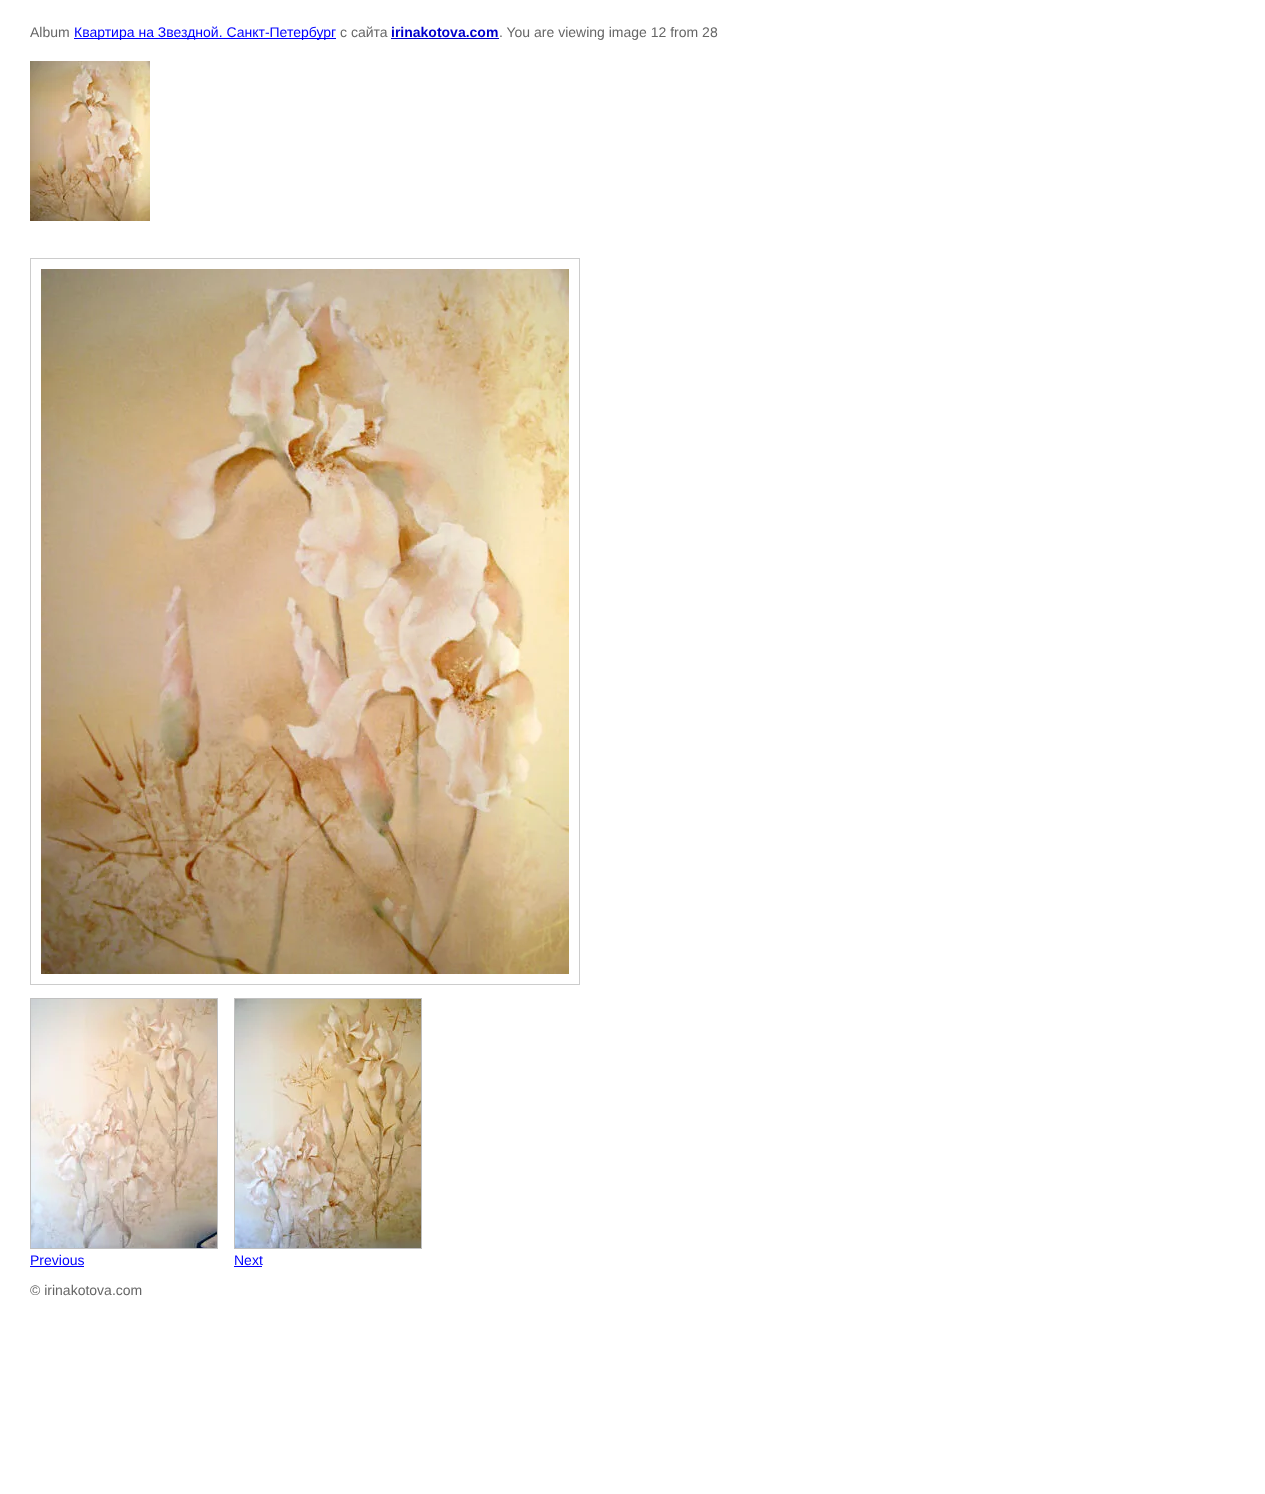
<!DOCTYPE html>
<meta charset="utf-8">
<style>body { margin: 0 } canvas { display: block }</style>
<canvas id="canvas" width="1265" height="1494"></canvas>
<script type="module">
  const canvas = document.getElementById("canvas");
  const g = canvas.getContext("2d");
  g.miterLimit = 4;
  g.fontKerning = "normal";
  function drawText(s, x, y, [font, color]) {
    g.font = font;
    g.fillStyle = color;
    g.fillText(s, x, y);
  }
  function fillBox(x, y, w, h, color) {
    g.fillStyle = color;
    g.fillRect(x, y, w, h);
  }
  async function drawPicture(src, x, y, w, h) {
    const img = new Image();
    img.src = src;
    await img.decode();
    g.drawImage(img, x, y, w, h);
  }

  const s1 = ["14px Liberation Sans", "#666666"];
  const s2 = ["14px Liberation Sans", "#0000FF"];
  const s3 = ["bold 14px Liberation Sans", "#0000CC"];

  fillBox(0, 0, 1265, 1494, "#FFFFFF");
  drawText("Album", 30, 37, s1);
  fillBox(74, 38, 262, 1, "#0000FF");
  drawText("Квартира на Звездной. Санкт-Петербург", 74, 37, s2);
  drawText("с сайта", 340, 37, s1);
  drawText("irinakotova.com", 391, 37, s3);
  fillBox(391, 38, 108, 1, "#0000CC");
  drawText(". You are viewing image 12 from 28", 499, 37, s1);
  await drawPicture("pic1.png", 30, 61, 120, 160);
  g.strokeStyle = "#CCCCCC";
  g.strokeRect(30.5, 258.5, 549, 726);
  await drawPicture("pic2.png", 41, 269, 528, 705);
  g.strokeStyle = "#C0C0C0";
  g.strokeRect(30.5, 998.5, 187, 250);
  await drawPicture("pic3.png", 31, 999, 186, 249);
  drawText("Previous", 30, 1265, s2);
  fillBox(30, 1266, 54, 1, "#0000FF");
  g.strokeRect(234.5, 998.5, 187, 250);
  await drawPicture("pic4.png", 235, 999, 186, 249);
  drawText("Next", 234, 1265, s2);
  fillBox(234, 1266, 28, 1, "#0000FF");
  drawText("© irinakotova.com", 30, 1295, s1);
</script>
